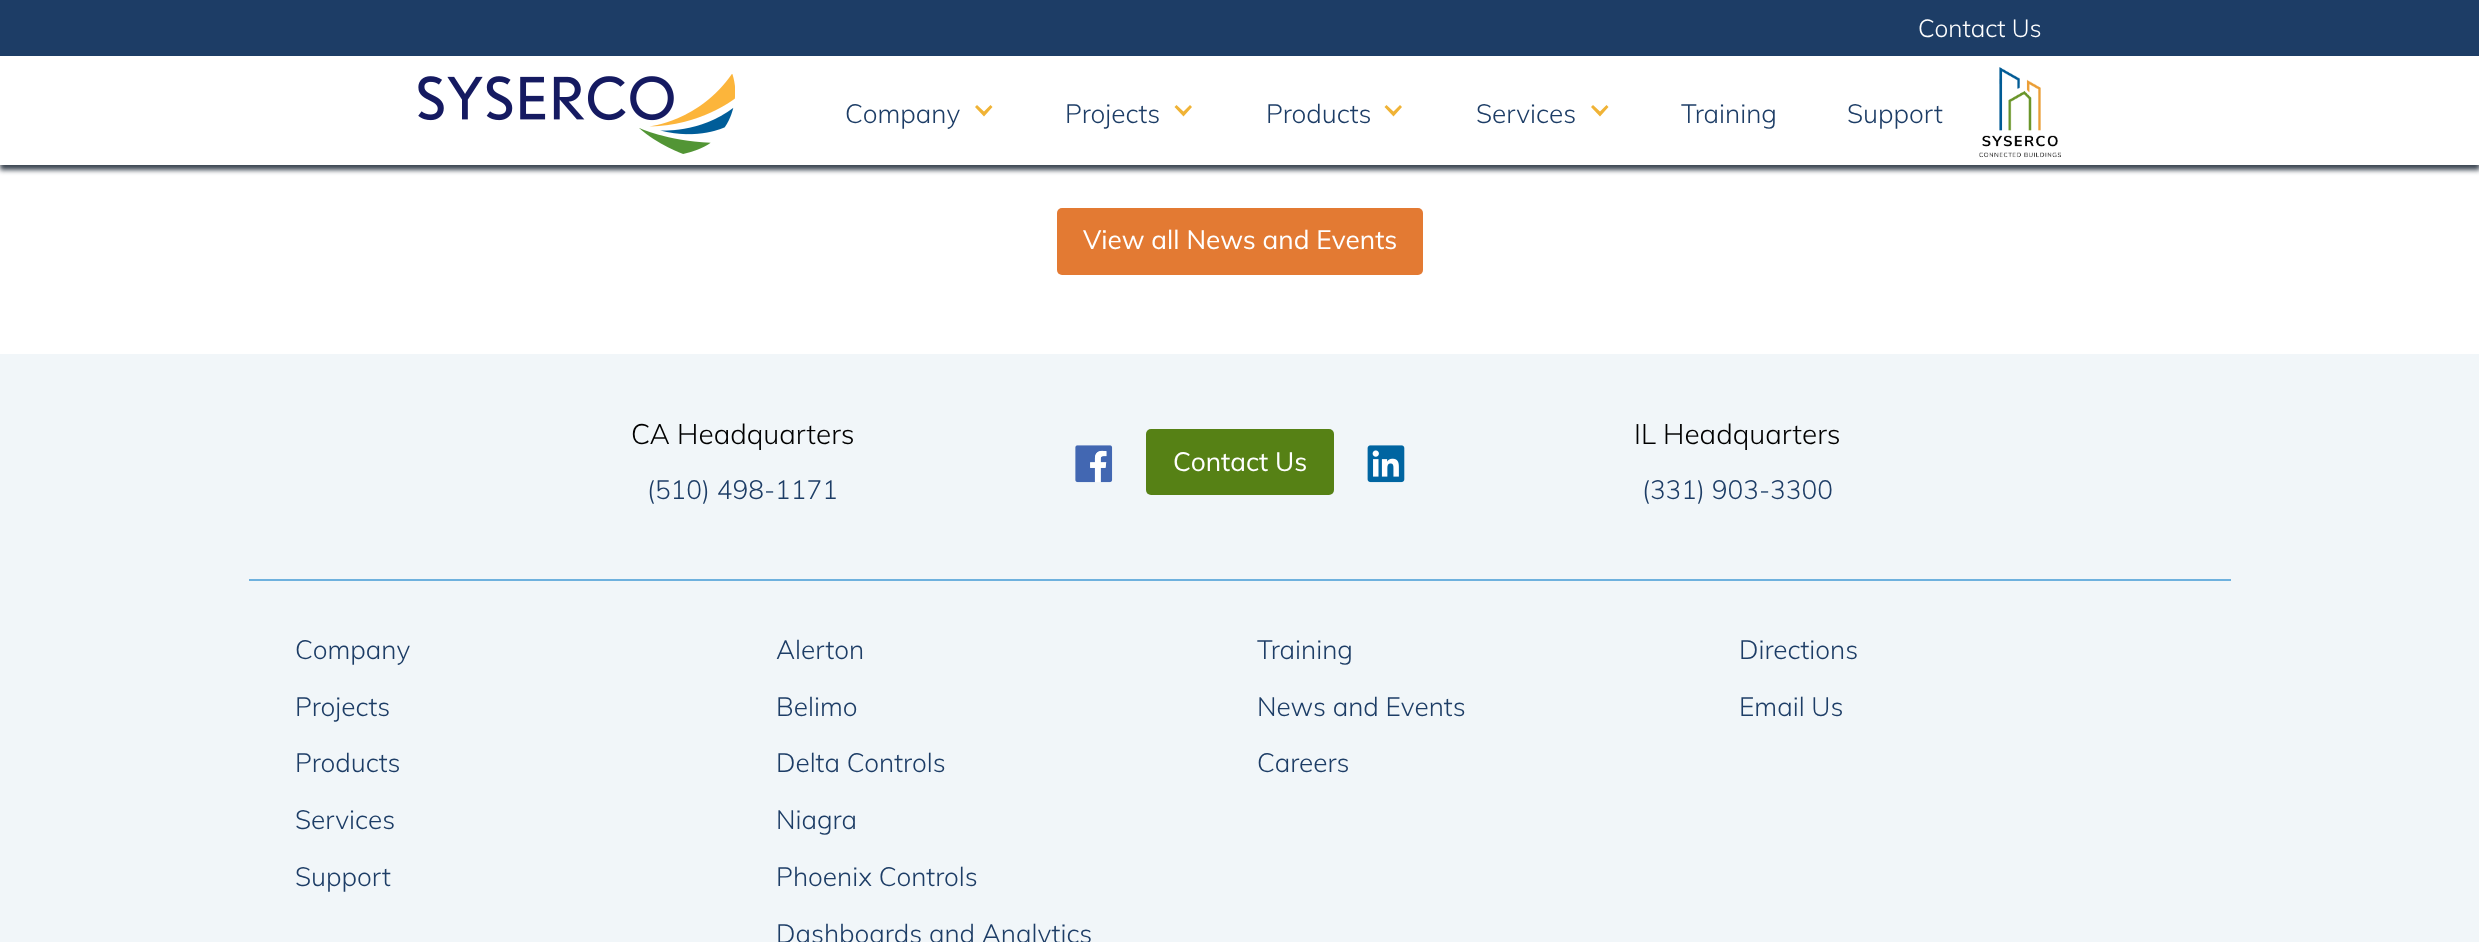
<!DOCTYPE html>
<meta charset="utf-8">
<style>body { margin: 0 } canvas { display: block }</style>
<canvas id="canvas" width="2479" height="942"></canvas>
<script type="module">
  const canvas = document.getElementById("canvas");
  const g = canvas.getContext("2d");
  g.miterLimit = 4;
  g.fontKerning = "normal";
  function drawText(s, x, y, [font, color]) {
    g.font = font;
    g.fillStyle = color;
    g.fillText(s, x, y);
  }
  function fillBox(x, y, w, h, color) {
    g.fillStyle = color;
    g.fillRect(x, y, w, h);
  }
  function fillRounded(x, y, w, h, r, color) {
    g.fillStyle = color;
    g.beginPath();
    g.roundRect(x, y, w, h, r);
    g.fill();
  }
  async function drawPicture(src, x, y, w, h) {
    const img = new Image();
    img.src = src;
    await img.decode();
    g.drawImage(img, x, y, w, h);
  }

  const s1 = ["300 24.5px Muli", "#FFFFFF"];
  const s2 = ["300 26.25px Muli", "#1D3D66"];
  const s3 = ["26.25px Muli", "#FFFFFF"];
  const s4 = ["300 28px Muli", "#000000"];

  fillBox(0, 0, 2479, 942, "#FFFFFF");
  fillBox(0, 0, 2479, 56, "#1D3D66");
  drawText("Contact Us", 1918, 37, s1);
  g.fillStyle = "#3C4652";
  g.filter = "blur(2.5px)";
  g.beginPath();
  g.rect(0, 61, 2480, 109);
  g.fill();
  g.filter = "none";
  fillBox(0, 56, 2479, 109, "#FFFFFF");
  await drawPicture("pic1.png", 418, 74, 317, 80);
  drawText("Company", 845, 123, s2);
  g.fillStyle = "#F0B336";
  g.beginPath();
  g.moveTo(990.5, 105);
  g.lineTo(984, 111.5);
  g.lineTo(977, 105);
  g.lineTo(975, 107);
  g.lineTo(984, 116.5);
  g.lineTo(992.5, 107);
  g.closePath();
  g.fill();
  drawText("Projects", 1065, 123, s2);
  g.fillStyle = "#F0B336";
  g.beginPath();
  g.moveTo(1190, 105);
  g.lineTo(1183.5, 111.5);
  g.lineTo(1176.5, 105);
  g.lineTo(1174.5, 107);
  g.lineTo(1183.5, 116.5);
  g.lineTo(1192, 107);
  g.closePath();
  g.fill();
  drawText("Products", 1266, 123, s2);
  g.fillStyle = "#F0B336";
  g.beginPath();
  g.moveTo(1400, 105);
  g.lineTo(1393.5, 111.5);
  g.lineTo(1386.5, 105);
  g.lineTo(1384.5, 107);
  g.lineTo(1393.5, 116.5);
  g.lineTo(1402, 107);
  g.closePath();
  g.fill();
  drawText("Services", 1476, 123, s2);
  g.fillStyle = "#F0B336";
  g.beginPath();
  g.moveTo(1606.5, 105);
  g.lineTo(1600, 111.5);
  g.lineTo(1593, 105);
  g.lineTo(1591, 107);
  g.lineTo(1600, 116.5);
  g.lineTo(1608.5, 107);
  g.closePath();
  g.fill();
  drawText("Training", 1681, 123, s2);
  drawText("Support", 1847, 123, s2);
  await drawPicture("pic2.png", 1979, 67, 82, 91);
  fillRounded(1057, 208, 366, 67, 5, "#E37A33");
  drawText("View all News and Events", 1083, 249, s3);
  fillBox(0, 354, 2479, 588, "#F1F6F9");
  fillBox(249, 579, 1982, 2, "#6EB1DE");
  drawText("CA Headquarters", 631, 444, s4);
  drawText("(510) 498-1171", 647, 499, s2);
  await drawPicture("pic3.png", 1075, 445, 38, 38);
  fillRounded(1146, 429, 188, 66, 5, "#568115");
  drawText("Contact Us", 1173, 471, s3);
  await drawPicture("pic4.png", 1367, 445, 38, 38);
  drawText("IL Headquarters", 1634, 444, s4);
  drawText("(331) 903-3300", 1642, 499, s2);
  drawText("Company", 295, 659, s2);
  drawText("Projects", 295, 716, s2);
  drawText("Products", 295, 772, s2);
  drawText("Services", 295, 829, s2);
  drawText("Support", 295, 886, s2);
  drawText("Alerton", 776, 659, s2);
  drawText("Belimo", 776, 716, s2);
  drawText("Delta Controls", 776, 772, s2);
  drawText("Niagra", 776, 829, s2);
  drawText("Phoenix Controls", 776, 886, s2);
  drawText("Dashboards and Analytics", 776, 943, s2);
  drawText("Training", 1257, 659, s2);
  drawText("News and Events", 1257, 716, s2);
  drawText("Careers", 1257, 772, s2);
  drawText("Directions", 1739, 659, s2);
  drawText("Email Us", 1739, 716, s2);
</script>
